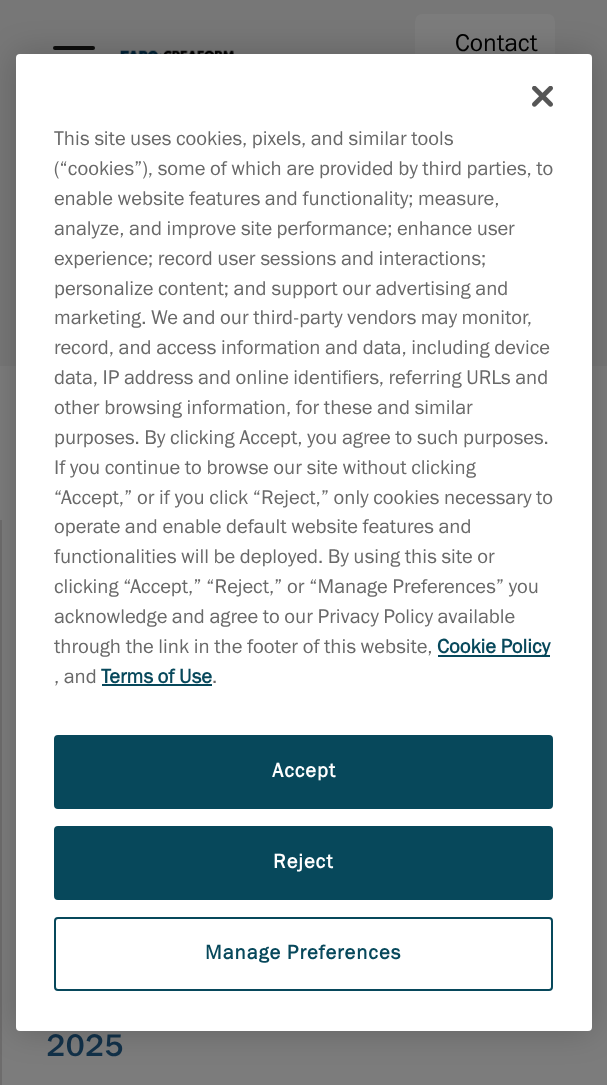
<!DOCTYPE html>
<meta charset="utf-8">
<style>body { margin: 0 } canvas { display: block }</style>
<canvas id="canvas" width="607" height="1085"></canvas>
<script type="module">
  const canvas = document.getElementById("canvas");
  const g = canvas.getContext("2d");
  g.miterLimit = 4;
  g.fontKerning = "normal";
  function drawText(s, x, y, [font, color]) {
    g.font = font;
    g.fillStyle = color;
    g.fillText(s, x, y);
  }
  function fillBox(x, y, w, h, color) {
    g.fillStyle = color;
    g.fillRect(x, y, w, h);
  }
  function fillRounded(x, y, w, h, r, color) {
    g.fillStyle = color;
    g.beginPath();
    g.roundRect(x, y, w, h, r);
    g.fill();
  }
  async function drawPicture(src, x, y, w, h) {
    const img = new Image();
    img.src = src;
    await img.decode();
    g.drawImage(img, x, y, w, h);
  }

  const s1 = ["24.5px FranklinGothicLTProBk", "#000000"];
  const s2 = ["500 31.5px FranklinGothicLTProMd", "#123149"];
  const s3 = ["19.9px FranklinGothicLTProBk", "#696969"];
  const s4 = ["bold 19.9px FranklinGothicLTProBk", "#07485B"];
  const s5 = ["bold 19.9px FranklinGothicLTProBk", "#FFFFFF"];

  fillBox(0, 0, 607, 1085, "#7C7C7C");
  fillBox(0, 0, 607, 366, "#777777");
  fillRounded(53, 46, 42, 4, 2, "#0D0D0C");
  await drawPicture("pic1.png", 120, 50, 114, 4);
  fillRounded(415, 14, 140, 95, 7, "#7C7C7C");
  drawText("Contact", 455, 51, s1);
  fillBox(0, 520, 2, 565, "#6D6C6C");
  drawText("2025", 46, 1056, s2);
  g.fillStyle = "rgba(0, 0, 0, 0.2)";
  g.filter = "blur(16px)";
  g.beginPath();
  g.roundRect(16, 54, 576, 977, 4);
  g.fill();
  g.filter = "none";
  fillRounded(16, 54, 576, 977, 4, "#FFFFFF");
  await drawPicture("pic2.png", 532, 86, 21, 21);
  drawText("This site uses cookies, pixels, and similar tools", 54, 145, s3);
  drawText("(“cookies”), some of which are provided by third parties, to", 54, 175, s3);
  drawText("enable website features and functionality; measure,", 54, 205, s3);
  drawText("analyze, and improve site performance; enhance user", 54, 235, s3);
  drawText("experience; record user sessions and interactions;", 54, 265, s3);
  drawText("personalize content; and support our advertising and", 54, 295, s3);
  drawText("marketing. We and our third-party vendors may monitor,", 54, 324, s3);
  drawText("record, and access information and data, including device", 54, 354, s3);
  drawText("data, IP address and online identifiers, referring URLs and", 54, 384, s3);
  drawText("other browsing information, for these and similar", 54, 414, s3);
  drawText("purposes. By clicking Accept, you agree to such purposes.", 54, 444, s3);
  drawText("If you continue to browse our site without clicking", 54, 474, s3);
  drawText("“Accept,” or if you click “Reject,” only cookies necessary to", 54, 504, s3);
  drawText("operate and enable default website features and", 54, 533, s3);
  drawText("functionalities will be deployed. By using this site or", 54, 563, s3);
  drawText("clicking “Accept,” “Reject,” or “Manage Preferences” you", 54, 593, s3);
  drawText("acknowledge and agree to our Privacy Policy available", 54, 623, s3);
  drawText("through the link in the footer of this website,", 54, 653, s3);
  fillBox(438, 655, 112, 2, "#07485B");
  drawText("Cookie Policy", 437, 653, s4);
  drawText(", and", 54, 683, s3);
  drawText("Terms of Use", 101, 683, s4);
  fillBox(102, 684, 110, 2, "#07485B");
  drawText(".", 212, 683, s3);
  g.fillStyle = "#07485B";
  g.beginPath();
  g.roundRect(55, 736, 497, 72, 3);
  g.fill();
  g.strokeStyle = "#07485B";
  g.lineWidth = 2;
  g.stroke();
  g.letterSpacing = "1px";
  drawText("Accept", 272, 777, s5);
  g.fillStyle = "#07485B";
  g.beginPath();
  g.roundRect(55, 827, 497, 72, 3);
  g.fill();
  g.stroke();
  drawText("Reject", 273, 868, s5);
  g.beginPath();
  g.roundRect(55, 918, 497, 72, 3);
  g.stroke();
  drawText("Manage Preferences", 205, 959, s4);
</script>
